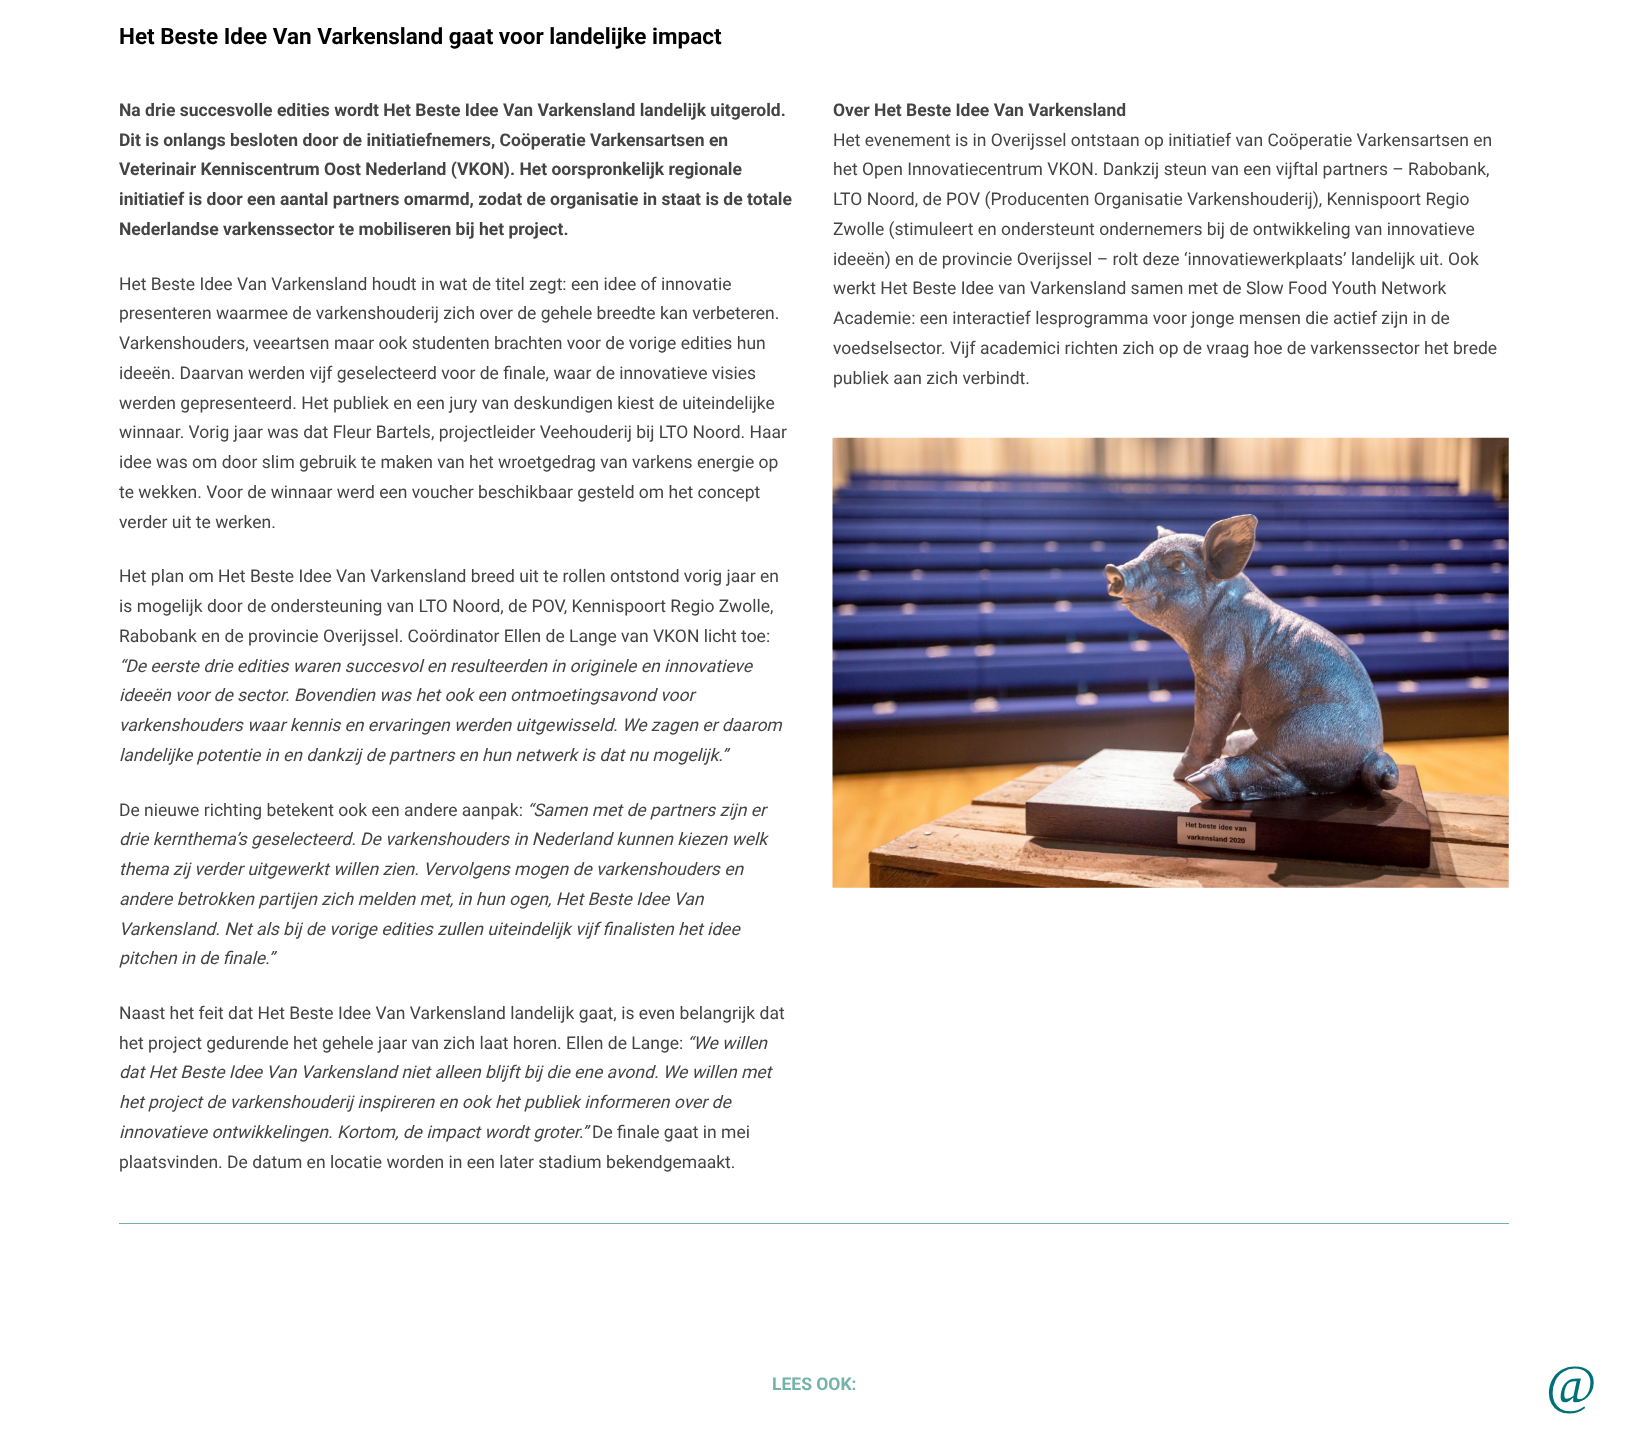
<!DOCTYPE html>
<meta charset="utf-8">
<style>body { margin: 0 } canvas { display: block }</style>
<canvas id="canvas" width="1627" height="1441"></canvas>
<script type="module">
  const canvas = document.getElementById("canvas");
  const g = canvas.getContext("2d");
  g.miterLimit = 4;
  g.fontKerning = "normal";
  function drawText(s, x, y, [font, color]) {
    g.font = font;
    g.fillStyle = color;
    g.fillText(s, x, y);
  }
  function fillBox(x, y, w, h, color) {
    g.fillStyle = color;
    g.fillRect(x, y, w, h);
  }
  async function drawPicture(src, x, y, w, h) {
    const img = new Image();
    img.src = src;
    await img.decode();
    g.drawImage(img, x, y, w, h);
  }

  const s1 = ["bold 22.5px Roboto", "#000000"];
  const s2 = ["bold 17.5px Roboto", "#444444"];
  const s3 = ["17.5px Roboto", "#444444"];
  const s4 = ["italic 17.5px Roboto", "#444444"];
  const s5 = ["bold 17.5px Roboto", "#73B3A8"];
  const s6 = ["55px Liberation Serif", "#007078"];

  fillBox(0, 0, 1627, 1441, "#FFFFFF");
  drawText("Het Beste Idee Van Varkensland gaat voor landelijke impact", 119, 44, s1);
  drawText("Na drie succesvolle edities wordt Het Beste Idee Van Varkensland landelijk uitgerold.", 119, 116, s2);
  drawText("Dit is onlangs besloten door de initiatiefnemers, Coöperatie Varkensartsen en", 119, 146, s2);
  drawText("Veterinair Kenniscentrum Oost Nederland (VKON). Het oorspronkelijk regionale", 119, 175, s2);
  drawText("initiatief is door een aantal partners omarmd, zodat de organisatie in staat is de totale", 119, 205, s2);
  drawText("Nederlandse varkenssector te mobiliseren bij het project.", 119, 235, s2);
  drawText("Het Beste Idee Van Varkensland houdt in wat de titel zegt: een idee of innovatie", 119, 290, s3);
  drawText("presenteren waarmee de varkenshouderij zich over de gehele breedte kan verbeteren.", 119, 319, s3);
  drawText("Varkenshouders, veeartsen maar ook studenten brachten voor de vorige edities hun", 119, 349, s3);
  drawText("ideeën. Daarvan werden vijf geselecteerd voor de finale, waar de innovatieve visies", 119, 379, s3);
  drawText("werden gepresenteerd. Het publiek en een jury van deskundigen kiest de uiteindelijke", 119, 409, s3);
  drawText("winnaar. Vorig jaar was dat Fleur Bartels, projectleider Veehouderij bij LTO Noord. Haar", 119, 438, s3);
  drawText("idee was om door slim gebruik te maken van het wroetgedrag van varkens energie op", 119, 468, s3);
  drawText("te wekken. Voor de winnaar werd een voucher beschikbaar gesteld om het concept", 119, 498, s3);
  drawText("verder uit te werken.", 119, 528, s3);
  drawText("Het plan om Het Beste Idee Van Varkensland breed uit te rollen ontstond vorig jaar en", 119, 582, s3);
  drawText("is mogelijk door de ondersteuning van LTO Noord, de POV, Kennispoort Regio Zwolle,", 119, 612, s3);
  drawText("Rabobank en de provincie Overijssel. Coördinator Ellen de Lange van VKON licht toe:", 119, 642, s3);
  drawText("“De eerste drie edities waren succesvol en resulteerden in originele en innovatieve", 119, 672, s4);
  drawText("ideeën voor de sector. Bovendien was het ook een ontmoetingsavond voor", 119, 701, s4);
  drawText("varkenshouders waar kennis en ervaringen werden uitgewisseld. We zagen er daarom", 119, 731, s4);
  drawText("landelijke potentie in en dankzij de partners en hun netwerk is dat nu mogelijk.”", 119, 761, s4);
  drawText("De nieuwe richting betekent ook een andere aanpak:", 119, 816, s3);
  drawText("“Samen met de partners zijn er", 527, 816, s4);
  drawText("drie kernthema’s geselecteerd. De varkenshouders in Nederland kunnen kiezen welk", 119, 845, s4);
  drawText("thema zij verder uitgewerkt willen zien. Vervolgens mogen de varkenshouders en", 119, 875, s4);
  drawText("andere betrokken partijen zich melden met, in hun ogen, Het Beste Idee Van", 119, 905, s4);
  drawText("Varkensland. Net als bij de vorige edities zullen uiteindelijk vijf finalisten het idee", 119, 935, s4);
  drawText("pitchen in de finale.”", 119, 964, s4);
  drawText("Naast het feit dat Het Beste Idee Van Varkensland landelijk gaat, is even belangrijk dat", 119, 1019, s3);
  drawText("het project gedurende het gehele jaar van zich laat horen. Ellen de Lange:", 119, 1049, s3);
  drawText("“We willen", 687, 1049, s4);
  drawText("dat Het Beste Idee Van Varkensland niet alleen blijft bij die ene avond. We willen met", 119, 1078, s4);
  drawText("het project de varkenshouderij inspireren en ook het publiek informeren over de", 119, 1108, s4);
  drawText("innovatieve ontwikkelingen. Kortom, de impact wordt groter.”", 119, 1138, s4);
  drawText("De finale gaat in mei", 592, 1138, s3);
  drawText("plaatsvinden. De datum en locatie worden in een later stadium bekendgemaakt.", 119, 1168, s3);
  drawText("Over Het Beste Idee Van Varkensland", 833, 116, s2);
  drawText("Het evenement is in Overijssel ontstaan op initiatief van Coöperatie Varkensartsen en", 833, 146, s3);
  drawText("het Open Innovatiecentrum VKON. Dankzij steun van een vijftal partners – Rabobank,", 833, 175, s3);
  drawText("LTO Noord, de POV (Producenten Organisatie Varkenshouderij), Kennispoort Regio", 833, 205, s3);
  drawText("Zwolle (stimuleert en ondersteunt ondernemers bij de ontwikkeling van innovatieve", 833, 235, s3);
  drawText("ideeën) en de provincie Overijssel – rolt deze ‘innovatiewerkplaats’ landelijk uit. Ook", 833, 265, s3);
  drawText("werkt Het Beste Idee van Varkensland samen met de Slow Food Youth Network", 833, 294, s3);
  drawText("Academie: een interactief lesprogramma voor jonge mensen die actief zijn in de", 833, 324, s3);
  drawText("voedselsector. Vijf academici richten zich op de vraag hoe de varkenssector het brede", 833, 354, s3);
  drawText("publiek aan zich verbindt.", 833, 384, s3);
  await drawPicture("pic1.png", 832, 437, 677, 451);
  fillBox(119, 1223, 1390, 1, "#73B3A8");
  drawText("LEES OOK:", 772, 1390, s5);
  drawText("@", 1546, 1403, s6);
</script>
